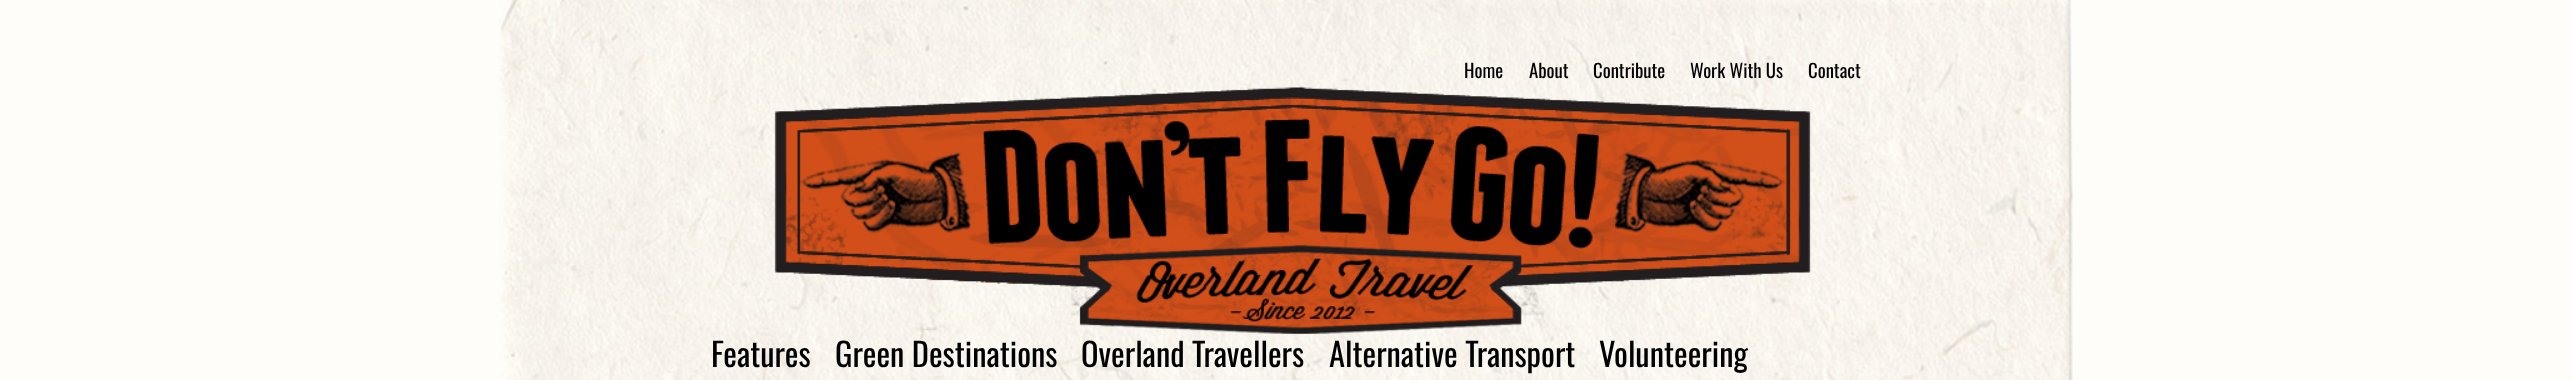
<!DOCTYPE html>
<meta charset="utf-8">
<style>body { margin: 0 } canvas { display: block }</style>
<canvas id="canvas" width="2572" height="380"></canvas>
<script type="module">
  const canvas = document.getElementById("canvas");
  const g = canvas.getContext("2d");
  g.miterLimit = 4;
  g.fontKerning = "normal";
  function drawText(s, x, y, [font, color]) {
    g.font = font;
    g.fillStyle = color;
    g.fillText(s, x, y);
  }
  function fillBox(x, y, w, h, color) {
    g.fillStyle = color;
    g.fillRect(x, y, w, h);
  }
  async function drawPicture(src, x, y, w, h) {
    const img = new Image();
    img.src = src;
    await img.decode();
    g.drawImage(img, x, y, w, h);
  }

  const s1 = ["18.75px Oswald", "#000000"];
  const s2 = ["32.5px Oswald", "#000000"];

  fillBox(0, 0, 2572, 380, "#FEFDF9");
  await drawPicture("pic1.png", 499, 0, 1575, 380);
  drawText("Home", 1464, 78, s1);
  drawText("About", 1529, 78, s1);
  drawText("Contribute", 1593, 78, s1);
  drawText("Work With Us", 1690, 78, s1);
  drawText("Contact", 1808, 78, s1);
  await drawPicture("pic2.png", 774, 84, 1037, 250);
  drawText("Features", 711, 367, s2);
  drawText("Green Destinations", 835, 367, s2);
  drawText("Overland Travellers", 1081, 367, s2);
  drawText("Alternative Transport", 1329, 367, s2);
  drawText("Volunteering", 1599, 367, s2);
</script>
